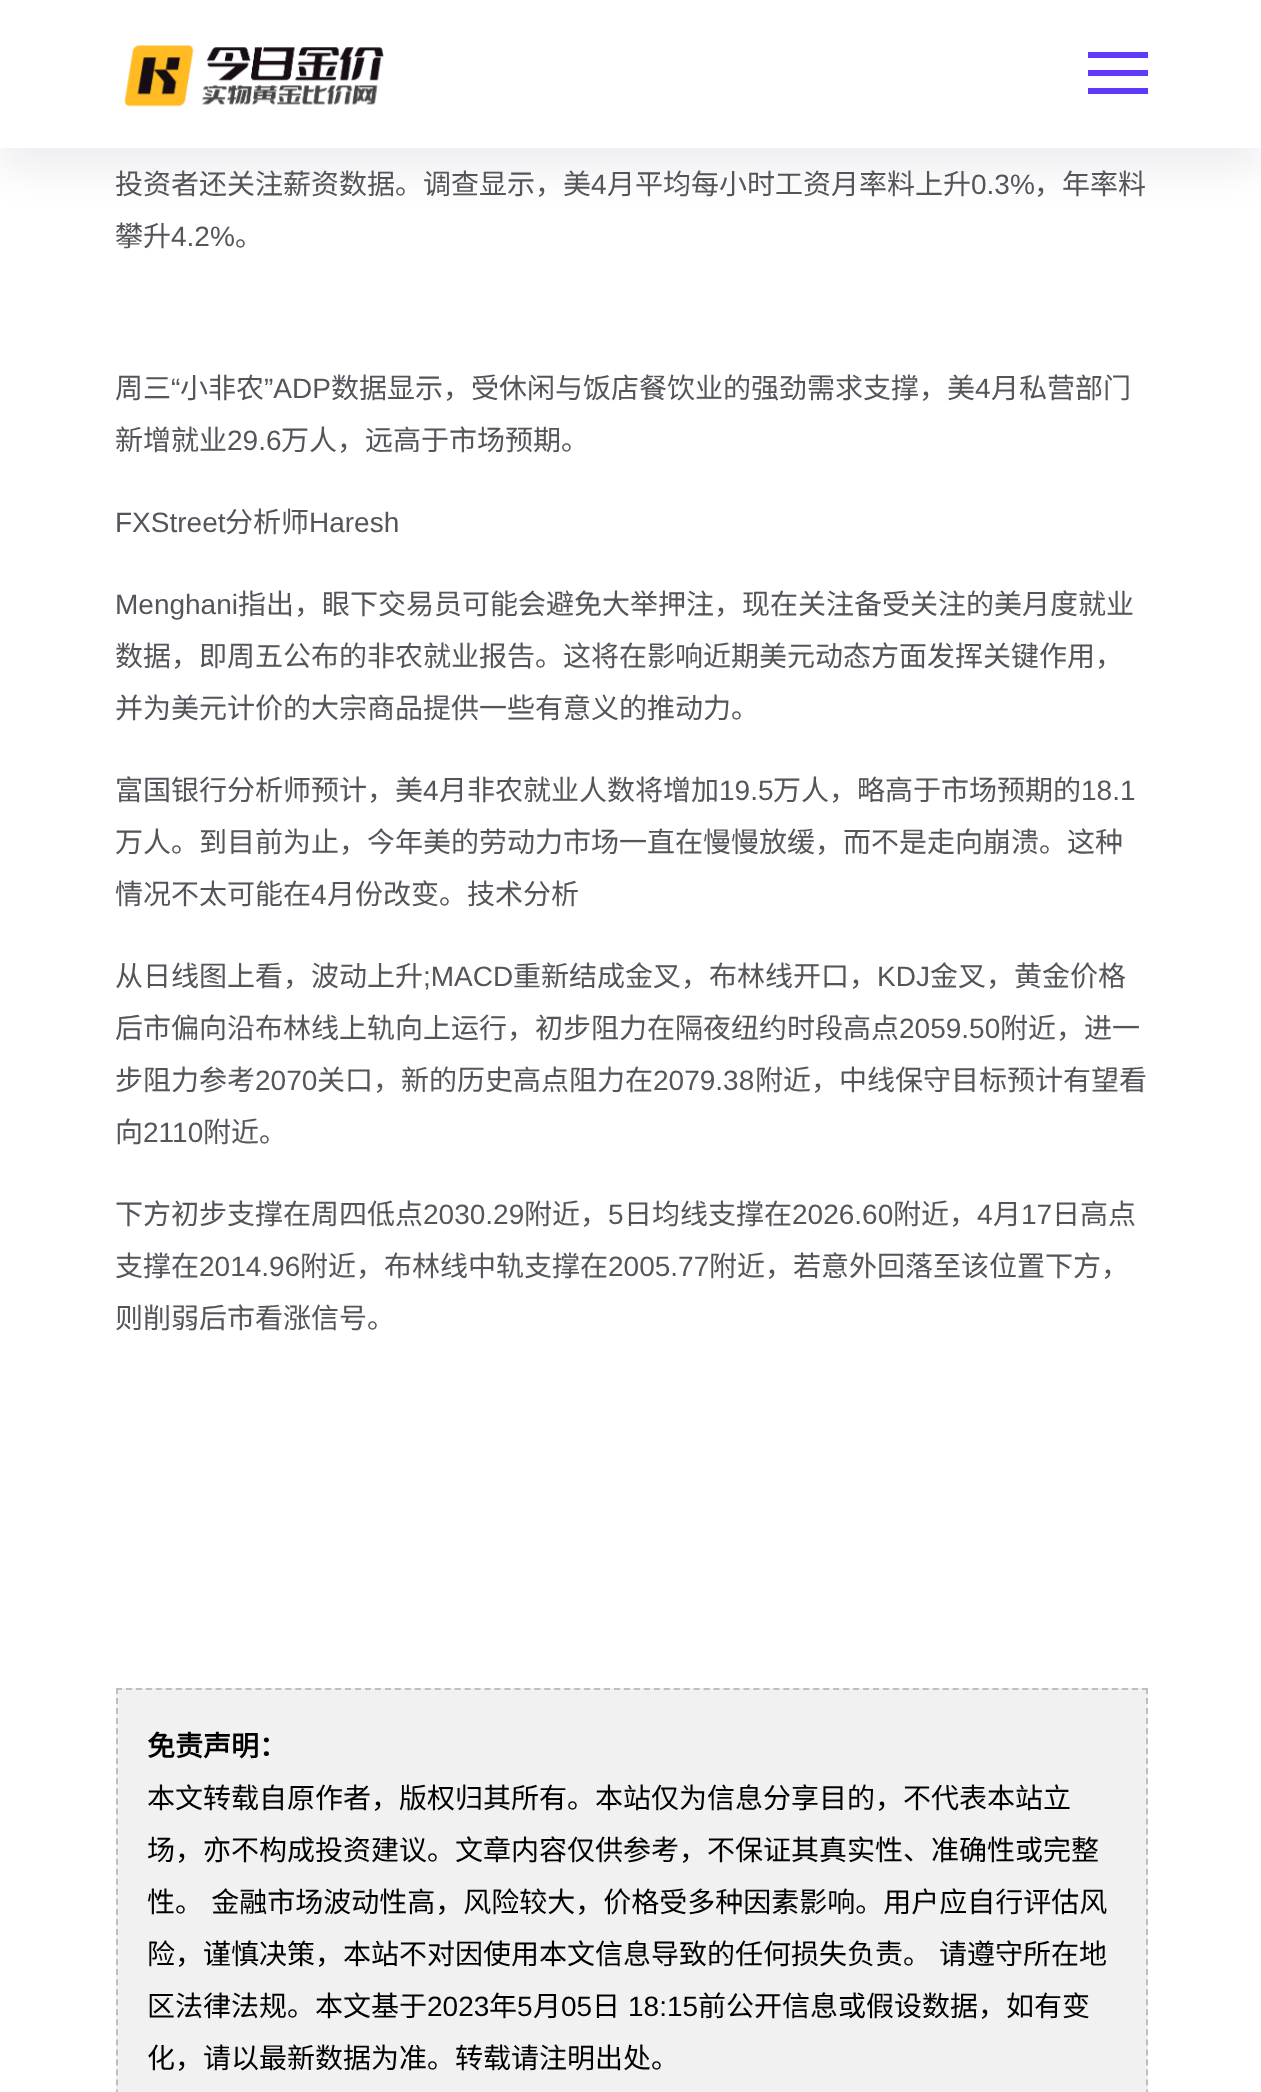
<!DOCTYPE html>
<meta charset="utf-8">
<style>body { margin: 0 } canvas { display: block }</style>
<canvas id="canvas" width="1261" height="2092"></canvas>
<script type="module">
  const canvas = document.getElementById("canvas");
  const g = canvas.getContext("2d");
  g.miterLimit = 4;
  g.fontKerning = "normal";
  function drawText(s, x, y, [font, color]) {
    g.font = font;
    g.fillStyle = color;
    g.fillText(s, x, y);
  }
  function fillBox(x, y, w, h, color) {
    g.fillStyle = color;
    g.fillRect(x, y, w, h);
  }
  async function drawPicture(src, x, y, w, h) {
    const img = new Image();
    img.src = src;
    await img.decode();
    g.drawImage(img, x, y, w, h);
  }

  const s1 = ["28px Noto Sans CJK SC", "#55545B"];
  const s2 = ["28px Liberation Sans", "#55545B"];
  const s3 = ["bold 28px Noto Sans CJK SC", "#000000"];
  const s4 = ["28px Noto Sans CJK SC", "#000000"];
  const s5 = ["28px Liberation Sans", "#000000"];

  fillBox(0, 0, 1261, 2092, "#FFFFFF");
  g.fillStyle = "rgba(8, 0, 42, 0.08)";
  g.filter = "blur(20px)";
  g.beginPath();
  g.rect(0, 20, 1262, 148);
  g.fill();
  g.filter = "none";
  fillBox(0, 0, 1261, 148, "#FFFFFF");
  await drawPicture("pic1.png", 124, 45, 260, 62);
  fillBox(1088, 52, 60, 6, "#5F3AFC");
  fillBox(1088, 70, 60, 6, "#5F3AFC");
  fillBox(1088, 88, 60, 6, "#5F3AFC");
  drawText("投资者还关注薪资数据。调查显示，美", 115, 194, s1);
  drawText("4", 591, 194, s2);
  drawText("月平均每小时工资月率料上升", 607, 194, s1);
  drawText("0.3%", 971, 194, s2);
  drawText("，年率料", 1034, 194, s1);
  drawText("攀升", 115, 246, s1);
  drawText("4.2%", 171, 246, s2);
  drawText("。", 235, 246, s1);
  drawText("周三", 115, 398, s1);
  drawText("“", 171, 398, s2);
  drawText("小非农", 180, 398, s1);
  drawText("”ADP", 264, 398, s2);
  drawText("数据显示，受休闲与饭店餐饮业的强劲需求支撑，美", 331, 398, s1);
  drawText("4", 975, 398, s2);
  drawText("月私营部门", 991, 398, s1);
  drawText("新增就业", 115, 450, s1);
  drawText("29.6", 227, 450, s2);
  drawText("万人，远高于市场预期。", 281, 450, s1);
  drawText("FXStreet", 115, 532, s2);
  drawText("分析师", 225, 532, s1);
  drawText("Haresh", 309, 532, s2);
  drawText("Menghani", 115, 614, s2);
  drawText("指出，眼下交易员可能会避免大举押注，现在关注备受关注的美月度就业", 238, 614, s1);
  drawText("数据，即周五公布的非农就业报告。这将在影响近期美元动态方面发挥关键作用，", 115, 666, s1);
  drawText("并为美元计价的大宗商品提供一些有意义的推动力。", 115, 718, s1);
  drawText("富国银行分析师预计，美", 115, 800, s1);
  drawText("4", 423, 800, s2);
  drawText("月非农就业人数将增加", 439, 800, s1);
  drawText("19.5", 719, 800, s2);
  drawText("万人，略高于市场预期的", 773, 800, s1);
  drawText("18.1", 1081, 800, s2);
  drawText("万人。到目前为止，今年美的劳动力市场一直在慢慢放缓，而不是走向崩溃。这种", 115, 852, s1);
  drawText("情况不太可能在", 115, 904, s1);
  drawText("4", 311, 904, s2);
  drawText("月份改变。技术分析", 327, 904, s1);
  drawText("从日线图上看，波动上升", 115, 986, s1);
  drawText(";MACD", 423, 986, s2);
  drawText("重新结成金叉，布林线开口，", 513, 986, s1);
  drawText("KDJ", 877, 986, s2);
  drawText("金叉，黄金价格", 930, 986, s1);
  drawText("后市偏向沿布林线上轨向上运行，初步阻力在隔夜纽约时段高点", 115, 1038, s1);
  drawText("2059.50", 899, 1038, s2);
  drawText("附近，进一", 1000, 1038, s1);
  drawText("步阻力参考", 115, 1090, s1);
  drawText("2070", 255, 1090, s2);
  drawText("关口，新的历史高点阻力在", 317, 1090, s1);
  drawText("2079.38", 653, 1090, s2);
  drawText("附近，中线保守目标预计有望看", 755, 1090, s1);
  drawText("向", 115, 1142, s1);
  drawText("2110", 143, 1142, s2);
  drawText("附近。", 203, 1142, s1);
  drawText("下方初步支撑在周四低点", 115, 1224, s1);
  drawText("2030.29", 423, 1224, s2);
  drawText("附近，", 524, 1224, s1);
  drawText("5", 608, 1224, s2);
  drawText("日均线支撑在", 624, 1224, s1);
  drawText("2026.60", 792, 1224, s2);
  drawText("附近，", 893, 1224, s1);
  drawText("4", 977, 1224, s2);
  drawText("月", 993, 1224, s1);
  drawText("17", 1021, 1224, s2);
  drawText("日高点", 1052, 1224, s1);
  drawText("支撑在", 115, 1276, s1);
  drawText("2014.96", 199, 1276, s2);
  drawText("附近，布林线中轨支撑在", 300, 1276, s1);
  drawText("2005.77", 608, 1276, s2);
  drawText("附近，若意外回落至该位置下方，", 709, 1276, s1);
  drawText("则削弱后市看涨信号。", 115, 1328, s1);
  fillBox(116, 1688, 1032, 404, "#F1F1F1");
  g.beginPath();
  g.moveTo(116, 1689);
  g.lineTo(1148, 1689);
  g.strokeStyle = "#BEBEBE";
  g.lineWidth = 2;
  g.setLineDash([6, 3.96]);
  g.stroke();
  g.beginPath();
  g.moveTo(1147, 1688);
  g.lineTo(1147, 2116);
  g.setLineDash([6, 4.04]);
  g.stroke();
  g.beginPath();
  g.moveTo(117, 1688);
  g.lineTo(117, 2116);
  g.stroke();
  drawText("免责声明：", 147, 1756, s3);
  drawText("本文转载自原作者，版权归其所有。本站仅为信息分享目的，不代表本站立", 147, 1808, s4);
  drawText("场，亦不构成投资建议。文章内容仅供参考，不保证其真实性、准确性或完整", 147, 1860, s4);
  g.wordSpacing = "2px";
  drawText("性。 金融市场波动性高，风险较大，价格受多种因素影响。用户应自行评估风", 147, 1912, s4);
  g.wordSpacing = "0px";
  drawText("险，谨慎决策，本站不对因使用本文信息导致的任何损失负责。", 147, 1964, s4);
  drawText("请遵守所在地", 939, 1964, s4);
  drawText("区法律法规。本文基于", 147, 2016, s4);
  drawText("2023", 427, 2016, s5);
  drawText("年", 489, 2016, s4);
  drawText("5", 517, 2016, s5);
  drawText("月", 533, 2016, s4);
  drawText("05", 561, 2016, s5);
  drawText("日", 592, 2016, s4);
  drawText("18:15", 628, 2016, s5);
  drawText("前公开信息或假设数据，如有变", 698, 2016, s4);
  drawText("化，请以最新数据为准。转载请注明出处。", 147, 2068, s4);
</script>
